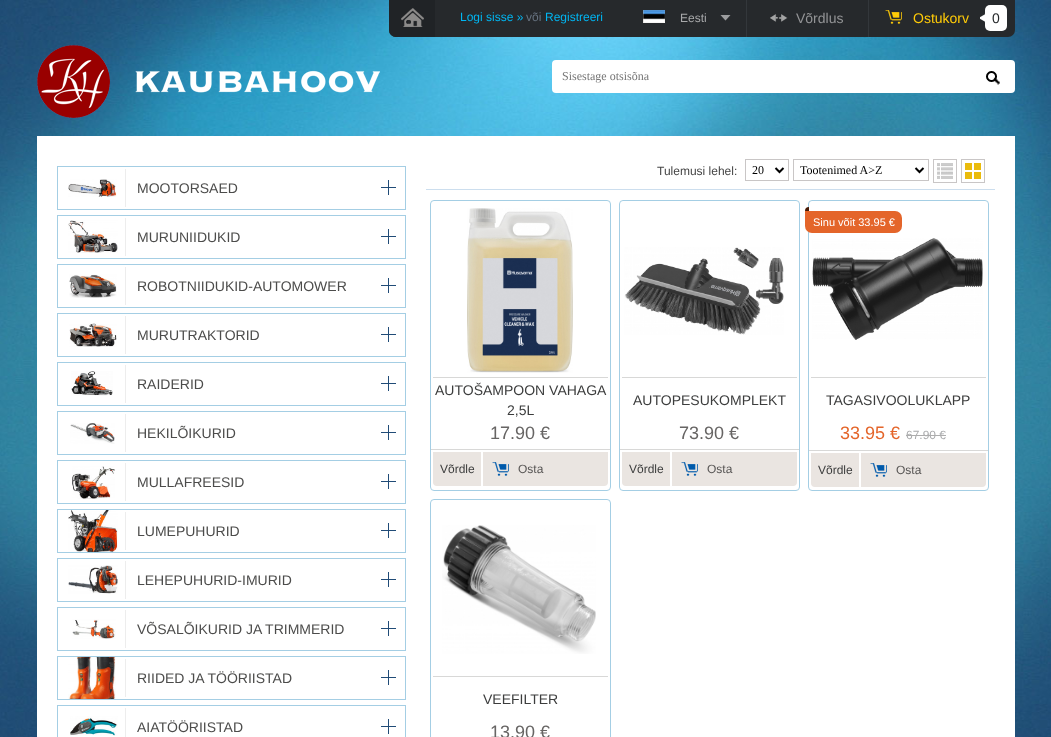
<!DOCTYPE html>
<meta charset="utf-8">
<style>body { margin: 0 } canvas { display: block }</style>
<canvas id="canvas" width="1051" height="737"></canvas>
<script type="module">
  const canvas = document.getElementById("canvas");
  const g = canvas.getContext("2d");
  g.miterLimit = 4;
  g.fontKerning = "normal";
  function drawText(s, x, y, [font, color]) {
    g.font = font;
    g.fillStyle = color;
    g.fillText(s, x, y);
  }
  function fillBox(x, y, w, h, color) {
    g.fillStyle = color;
    g.fillRect(x, y, w, h);
  }
  function fillRounded(x, y, w, h, r, color) {
    g.fillStyle = color;
    g.beginPath();
    g.roundRect(x, y, w, h, r);
    g.fill();
  }
  async function drawPicture(src, x, y, w, h) {
    const img = new Image();
    img.src = src;
    await img.decode();
    g.drawImage(img, x, y, w, h);
  }

  const s1 = ["12px Liberation Sans", "#00B6F2"];
  const s2 = ["12px Liberation Sans", "#677380"];
  const s3 = ["12px Liberation Sans", "#A8A9AB"];
  const s4 = ["14px Liberation Sans", "#939496"];
  const s5 = ["14px Liberation Sans", "#FFCB08"];
  const s6 = ["14px Liberation Sans", "#26292C"];
  const s7 = ["12px Liberation Serif", "#757575"];
  const s8 = ["14px Liberation Sans", "#4C4C4B"];
  const s9 = ["12px Liberation Sans", "#464646"];
  const s10 = ["12px Liberation Serif", "#000000"];
  const s11 = ["14px Liberation Sans", "#3C3D3D"];
  const s12 = ["18px Liberation Sans", "#676564"];
  const s13 = ["12px Liberation Sans", "#3C3D3D"];
  const s14 = ["12px Liberation Sans", "#575554"];
  const s15 = ["11px Liberation Sans", "#FFFFFF"];
  const s16 = ["18px Liberation Sans", "#E4652A"];

  fillBox(0, 0, 1051, 737, "#FFFFFF");
  await drawPicture("pic1.png", 0, 0, 1051, 737);
  g.fillStyle = "#26292C";
  g.beginPath();
  g.roundRect(389, 0, 626, 37, [0, 0, 7, 7]);
  g.fill();
  g.fillStyle = "#202326";
  g.beginPath();
  g.roundRect(389, 0, 46, 37, [0, 0, 0, 7]);
  g.fill();
  await drawPicture("pic2.png", 401, 8, 23, 19);
  drawText("Logi sisse »", 460, 21, s1);
  drawText("või", 526, 21, s2);
  drawText("Registreeri", 545, 21, s1);
  await drawPicture("pic3.png", 720, 15, 11, 6);
  await drawPicture("pic4.png", 643, 10, 22, 13);
  drawText("Eesti", 680, 22, s3);
  fillBox(746, 0, 1, 37, "#33373B");
  await drawPicture("pic5.png", 770, 14, 18, 8);
  fillBox(868, 0, 1, 37, "#33373B");
  drawText("Võrdlus", 796, 23, s4);
  await drawPicture("pic6.png", 885, 10, 17, 14);
  drawText("Ostukorv", 913, 23, s5);
  await drawPicture("pic7.png", 980, 13, 5, 10);
  fillRounded(985, 5, 22, 26, 5, "#FFFFFF");
  drawText("0", 992, 23, s6);
  await drawPicture("pic8.png", 37, 45, 343, 73);
  fillRounded(552, 60, 463, 33, 4, "#FFFFFF");
  drawText("Sisestage otsisõna", 562, 80, s7);
  await drawPicture("pic9.png", 986, 71, 14, 14);
  fillBox(37, 136, 978, 601, "#FFFFFF");
  await drawPicture("pic10.png", 68, 179, 49, 18);
  g.strokeStyle = "#A4CEE4";
  g.strokeRect(57.5, 166.5, 348, 43);
  fillBox(125, 169, 1, 38, "#EDEDED");
  await drawPicture("pic11.png", 381, 180, 15, 15);
  drawText("MOOTORSAED", 137, 193, s8);
  await drawPicture("pic12.png", 68, 220, 50, 33);
  g.strokeRect(57.5, 215.5, 348, 43);
  fillBox(125, 218, 1, 38, "#EDEDED");
  await drawPicture("pic11.png", 381, 229, 15, 15);
  drawText("MURUNIIDUKID", 137, 242, s8);
  await drawPicture("pic13.png", 69, 274, 48, 24);
  g.strokeRect(57.5, 264.5, 348, 43);
  fillBox(125, 267, 1, 38, "#EDEDED");
  await drawPicture("pic11.png", 381, 278, 15, 15);
  drawText("ROBOTNIIDUKID-AUTOMOWER", 137, 291, s8);
  await drawPicture("pic14.png", 69, 323, 48, 24);
  g.strokeRect(57.5, 313.5, 348, 43);
  fillBox(125, 316, 1, 38, "#EDEDED");
  await drawPicture("pic11.png", 381, 327, 15, 15);
  drawText("MURUTRAKTORID", 137, 340, s8);
  await drawPicture("pic15.png", 71, 371, 42, 25);
  g.strokeRect(57.5, 362.5, 348, 43);
  fillBox(125, 365, 1, 38, "#EDEDED");
  await drawPicture("pic11.png", 381, 376, 15, 15);
  drawText("RAIDERID", 137, 389, s8);
  await drawPicture("pic16.png", 70, 423, 45, 21);
  g.strokeRect(57.5, 411.5, 348, 43);
  fillBox(125, 414, 1, 38, "#EDEDED");
  await drawPicture("pic11.png", 381, 425, 15, 15);
  drawText("HEKILÕIKURID", 137, 438, s8);
  await drawPicture("pic17.png", 72, 466, 43, 33);
  g.strokeRect(57.5, 460.5, 348, 43);
  fillBox(125, 463, 1, 38, "#EDEDED");
  await drawPicture("pic11.png", 381, 474, 15, 15);
  drawText("MULLAFREESID", 137, 487, s8);
  await drawPicture("pic18.png", 68, 510, 50, 42);
  g.strokeRect(57.5, 509.5, 348, 43);
  fillBox(125, 512, 1, 38, "#EDEDED");
  await drawPicture("pic11.png", 381, 523, 15, 15);
  drawText("LUMEPUHURID", 137, 536, s8);
  await drawPicture("pic19.png", 68, 565, 50, 29);
  g.strokeRect(57.5, 558.5, 348, 43);
  fillBox(125, 561, 1, 38, "#EDEDED");
  await drawPicture("pic11.png", 381, 572, 15, 15);
  drawText("LEHEPUHURID-IMURID", 137, 585, s8);
  await drawPicture("pic20.png", 72, 619, 44, 20);
  g.strokeRect(57.5, 607.5, 348, 43);
  fillBox(125, 610, 1, 38, "#EDEDED");
  await drawPicture("pic11.png", 381, 621, 15, 15);
  drawText("VÕSALÕIKURID JA TRIMMERID", 137, 634, s8);
  await drawPicture("pic21.png", 68, 657, 48, 42);
  g.strokeRect(57.5, 656.5, 348, 43);
  fillBox(125, 659, 1, 38, "#EDEDED");
  await drawPicture("pic11.png", 381, 670, 15, 15);
  drawText("RIIDED JA TÖÖRIISTAD", 137, 683, s8);
  await drawPicture("pic22.png", 70, 716, 48, 20);
  g.strokeRect(57.5, 705.5, 348, 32);
  fillBox(125, 708, 1, 29, "#EDEDED");
  await drawPicture("pic11.png", 381, 719, 15, 15);
  drawText("AIATÖÖRIISTAD", 137, 732, s8);
  fillBox(426, 189, 569, 1, "#CCDEEE");
  drawText("Tulemusi lehel:", 657, 175, s9);
  g.strokeStyle = "#C9C6C6";
  g.strokeRect(745.5, 159.5, 43, 21);
  g.beginPath();
  g.moveTo(775.5, 168);
  g.lineTo(779.5, 172);
  g.lineTo(783.5, 168);
  g.strokeStyle = "#000000";
  g.lineWidth = 2;
  g.stroke();
  drawText("20", 752, 174, s10);
  g.strokeStyle = "#C9C6C6";
  g.lineWidth = 1;
  g.strokeRect(793.5, 159.5, 135, 21);
  g.beginPath();
  g.moveTo(915.5, 168);
  g.lineTo(919.5, 172);
  g.lineTo(923.5, 168);
  g.strokeStyle = "#000000";
  g.lineWidth = 2;
  g.stroke();
  drawText("Tootenimed A>Z", 800, 174, s10);
  await drawPicture("pic23.png", 937, 163, 16, 16);
  g.strokeStyle = "#C9C6C6";
  g.lineWidth = 1;
  g.strokeRect(933.5, 159.5, 23, 23);
  await drawPicture("pic24.png", 965, 163, 16, 16);
  g.strokeRect(961.5, 159.5, 23, 23);
  g.beginPath();
  g.roundRect(430.5, 200.5, 180, 290, 3.5);
  g.strokeStyle = "#A4CEE4";
  g.stroke();
  fillRounded(431, 201, 179, 176, 5, "#FFFFFF");
  await drawPicture("pic25.png", 467, 208, 106, 165);
  fillBox(433, 377, 175, 1, "#D8D8D7");
  drawText("AUTOŠAMPOON VAHAGA", 435, 395, s11);
  drawText("2,5L", 507, 415, s11);
  fillBox(431, 449, 179, 1, "#D8D8D7");
  drawText("17.90 €", 490, 439, s12);
  g.fillStyle = "#EAE5E1";
  g.beginPath();
  g.roundRect(433, 452, 48, 34, [0, 0, 0, 4]);
  g.fill();
  drawText("Võrdle", 440, 473, s13);
  g.fillStyle = "#EAE5E1";
  g.beginPath();
  g.roundRect(483, 452, 125, 34, [0, 0, 4, 0]);
  g.fill();
  await drawPicture("pic26.png", 492, 462, 17, 14);
  drawText("Osta", 518, 473, s14);
  g.beginPath();
  g.roundRect(619.5, 200.5, 180, 290, 3.5);
  g.stroke();
  fillRounded(620, 201, 179, 176, 5, "#FFFFFF");
  await drawPicture("pic27.png", 624, 247, 160, 88);
  fillBox(622, 377, 175, 1, "#D8D8D7");
  drawText("AUTOPESUKOMPLEKT", 633, 405, s11);
  fillBox(620, 449, 179, 1, "#D8D8D7");
  drawText("73.90 €", 679, 439, s12);
  g.fillStyle = "#EAE5E1";
  g.beginPath();
  g.roundRect(622, 452, 48, 34, [0, 0, 0, 4]);
  g.fill();
  drawText("Võrdle", 629, 473, s13);
  g.fillStyle = "#EAE5E1";
  g.beginPath();
  g.roundRect(672, 452, 125, 34, [0, 0, 4, 0]);
  g.fill();
  await drawPicture("pic26.png", 681, 462, 17, 14);
  drawText("Osta", 707, 473, s14);
  g.beginPath();
  g.roundRect(808.5, 200.5, 180, 290, 3.5);
  g.stroke();
  fillRounded(809, 201, 179, 176, 5, "#FFFFFF");
  g.fillStyle = "#E4652A";
  g.beginPath();
  g.roundRect(805, 211, 97, 22, [0, 7, 7, 7]);
  g.fill();
  g.fillStyle = "#481A05";
  g.beginPath();
  g.roundRect(805, 207, 4, 4, [4, 0, 0, 0]);
  g.fill();
  drawText("Sinu võit 33.95 €", 813, 226, s15);
  await drawPicture("pic28.png", 812, 238, 171, 102);
  fillBox(811, 377, 175, 1, "#D8D8D7");
  drawText("TAGASIVOOLUKLAPP", 826, 405, s11);
  fillBox(809, 450, 179, 1, "#D8D8D7");
  drawText("33.95 €", 840, 439, s16);
  drawText("67.90 €", 906, 439, s3);
  fillBox(906, 435, 40, 1, "#ADADAD");
  g.fillStyle = "#EAE5E1";
  g.beginPath();
  g.roundRect(811, 453, 48, 34, [0, 0, 0, 4]);
  g.fill();
  drawText("Võrdle", 818, 474, s13);
  g.fillStyle = "#EAE5E1";
  g.beginPath();
  g.roundRect(861, 453, 125, 34, [0, 0, 4, 0]);
  g.fill();
  await drawPicture("pic26.png", 870, 463, 17, 14);
  drawText("Osta", 896, 474, s14);
  g.beginPath();
  g.roundRect(430.5, 499.5, 180, 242, 3.5);
  g.stroke();
  fillRounded(431, 500, 179, 176, 5, "#FFFFFF");
  await drawPicture("pic29.png", 442, 525, 154, 129);
  fillBox(433, 676, 175, 1, "#D8D8D7");
  drawText("VEEFILTER", 483, 704, s11);
  drawText("13.90 €", 490, 738, s12);
</script>
